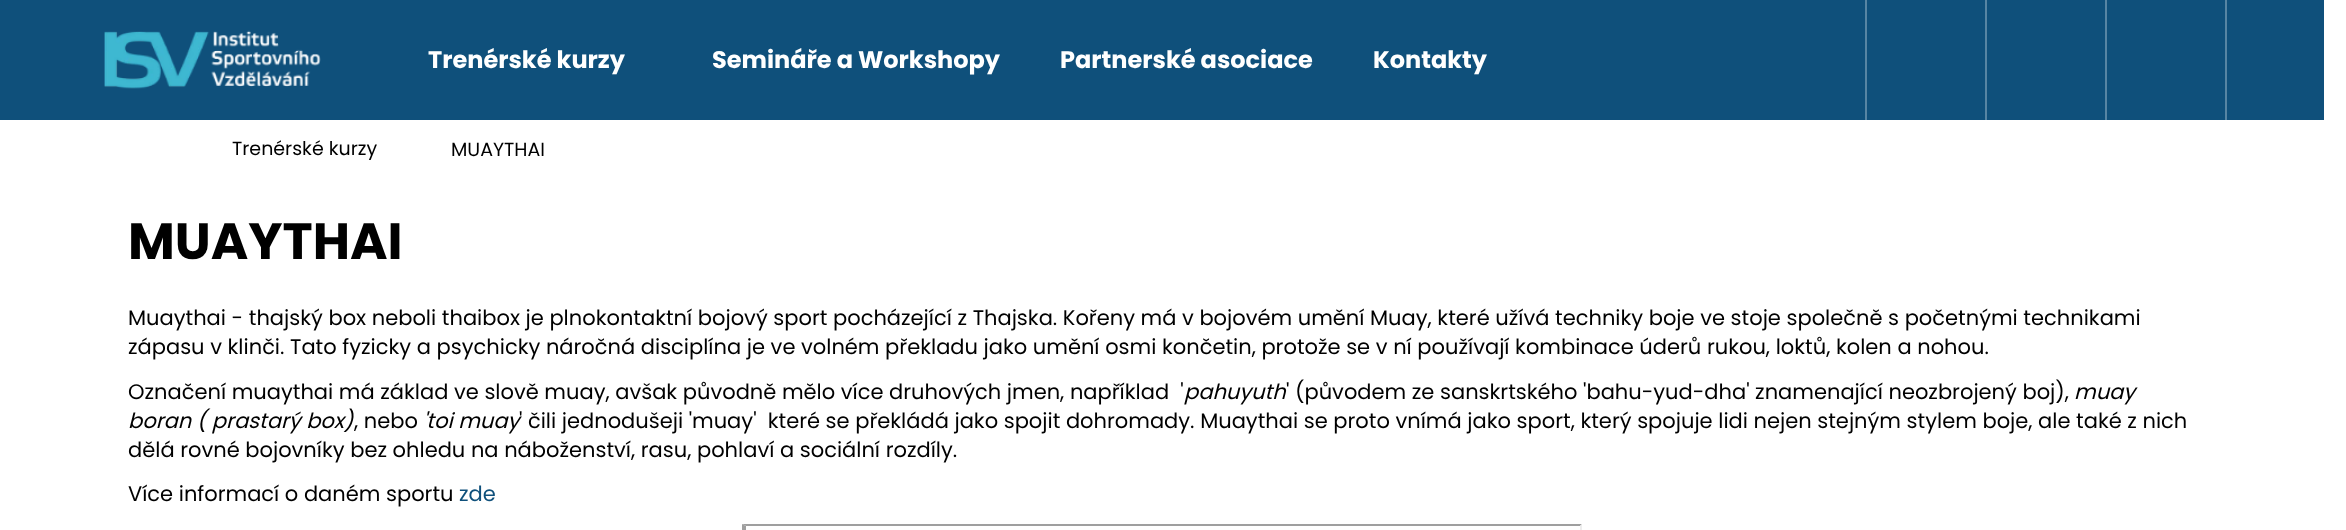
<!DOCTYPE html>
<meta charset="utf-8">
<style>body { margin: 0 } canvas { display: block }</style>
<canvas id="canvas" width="2346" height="530"></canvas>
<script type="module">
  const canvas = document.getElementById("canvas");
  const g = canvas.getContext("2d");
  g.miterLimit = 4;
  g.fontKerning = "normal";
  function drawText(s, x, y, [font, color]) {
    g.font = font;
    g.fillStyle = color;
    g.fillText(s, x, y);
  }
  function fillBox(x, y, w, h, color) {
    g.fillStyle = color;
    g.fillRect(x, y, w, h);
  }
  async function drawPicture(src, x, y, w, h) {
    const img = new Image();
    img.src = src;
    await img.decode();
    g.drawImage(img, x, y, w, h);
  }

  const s1 = ["bold 24px Poppins", "#FFFFFF"];
  const s2 = ["19px Poppins", "#000000"];
  const s3 = ["bold 51px Poppins", "#000000"];
  const s4 = ["21px Poppins", "#000000"];
  const s5 = ["italic 21px Poppins", "#000000"];
  const s6 = ["21px Poppins", "#0F507B"];

  fillBox(0, 0, 2346, 530, "#FFFFFF");
  fillBox(0, 0, 2324, 120, "#0F507B");
  await drawPicture("pic1.png", 104, 30, 217, 59);
  drawText("Trenérské kurzy", 428, 68, s1);
  drawText("Semináře a Workshopy", 712, 68, s1);
  drawText("Partnerské asociace", 1060, 68, s1);
  drawText("Kontakty", 1373, 68, s1);
  fillBox(2225, 0, 2, 120, "#5785A3");
  fillBox(1865, 0, 2, 120, "#5785A3");
  fillBox(1985, 0, 2, 120, "#5785A3");
  fillBox(2105, 0, 2, 120, "#5785A3");
  drawText("Trenérské kurzy", 232, 155, s2);
  drawText("MUAYTHAI", 451, 156, s2);
  drawText("MUAYTHAI", 128, 259, s3);
  drawText("Muaythai - thajský box neboli thaibox je plnokontaktní bojový sport pocházející z Thajska. Kořeny má v bojovém umění Muay, které užívá techniky boje ve stoje společně s početnými technikami", 128, 325, s4);
  drawText("zápasu v klinči. Tato fyzicky a psychicky náročná disciplína je ve volném překladu jako umění osmi končetin, protože se v ní používají kombinace úderů rukou, loktů, kolen a nohou.", 128, 354, s4);
  drawText("Označení muaythai má základ ve slově muay, avšak původně mělo více druhových jmen, například  '", 128, 399, s4);
  drawText("pahuyuth", 1184, 399, s5);
  drawText("' (původem ze sanskrtského 'bahu-yud-dha' znamenající neozbrojený boj),", 1286, 399, s4);
  drawText("muay", 2074, 399, s5);
  drawText("boran ( prastarý box)", 128, 428, s5);
  drawText(", nebo", 354, 428, s4);
  drawText("'toi muay", 423, 428, s5);
  drawText("' čili jednodušeji 'muay'  které se překládá jako spojit dohromady. Muaythai se proto vnímá jako sport, který spojuje lidi nejen stejným stylem boje, ale také z nich", 519, 428, s4);
  drawText("dělá rovné bojovníky bez ohledu na náboženství, rasu, pohlaví a sociální rozdíly.", 128, 457, s4);
  drawText("Více informací o daném sportu", 128, 501, s4);
  drawText("zde", 459, 501, s6);
  g.fillStyle = "#9F9F9F";
  g.beginPath();
  g.moveTo(742, 524);
  g.lineTo(1582, 524);
  g.lineTo(1580, 526);
  g.lineTo(746, 526);
  g.closePath();
  g.fill();
  g.beginPath();
  g.moveTo(742, 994);
  g.lineTo(742, 524);
  g.lineTo(746, 526);
  g.lineTo(746, 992);
  g.closePath();
  g.fill();
  g.fillStyle = "#EEEEEE";
  g.beginPath();
  g.moveTo(1582, 524);
  g.lineTo(1582, 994);
  g.lineTo(1580, 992);
  g.lineTo(1580, 526);
  g.closePath();
  g.fill();
</script>
